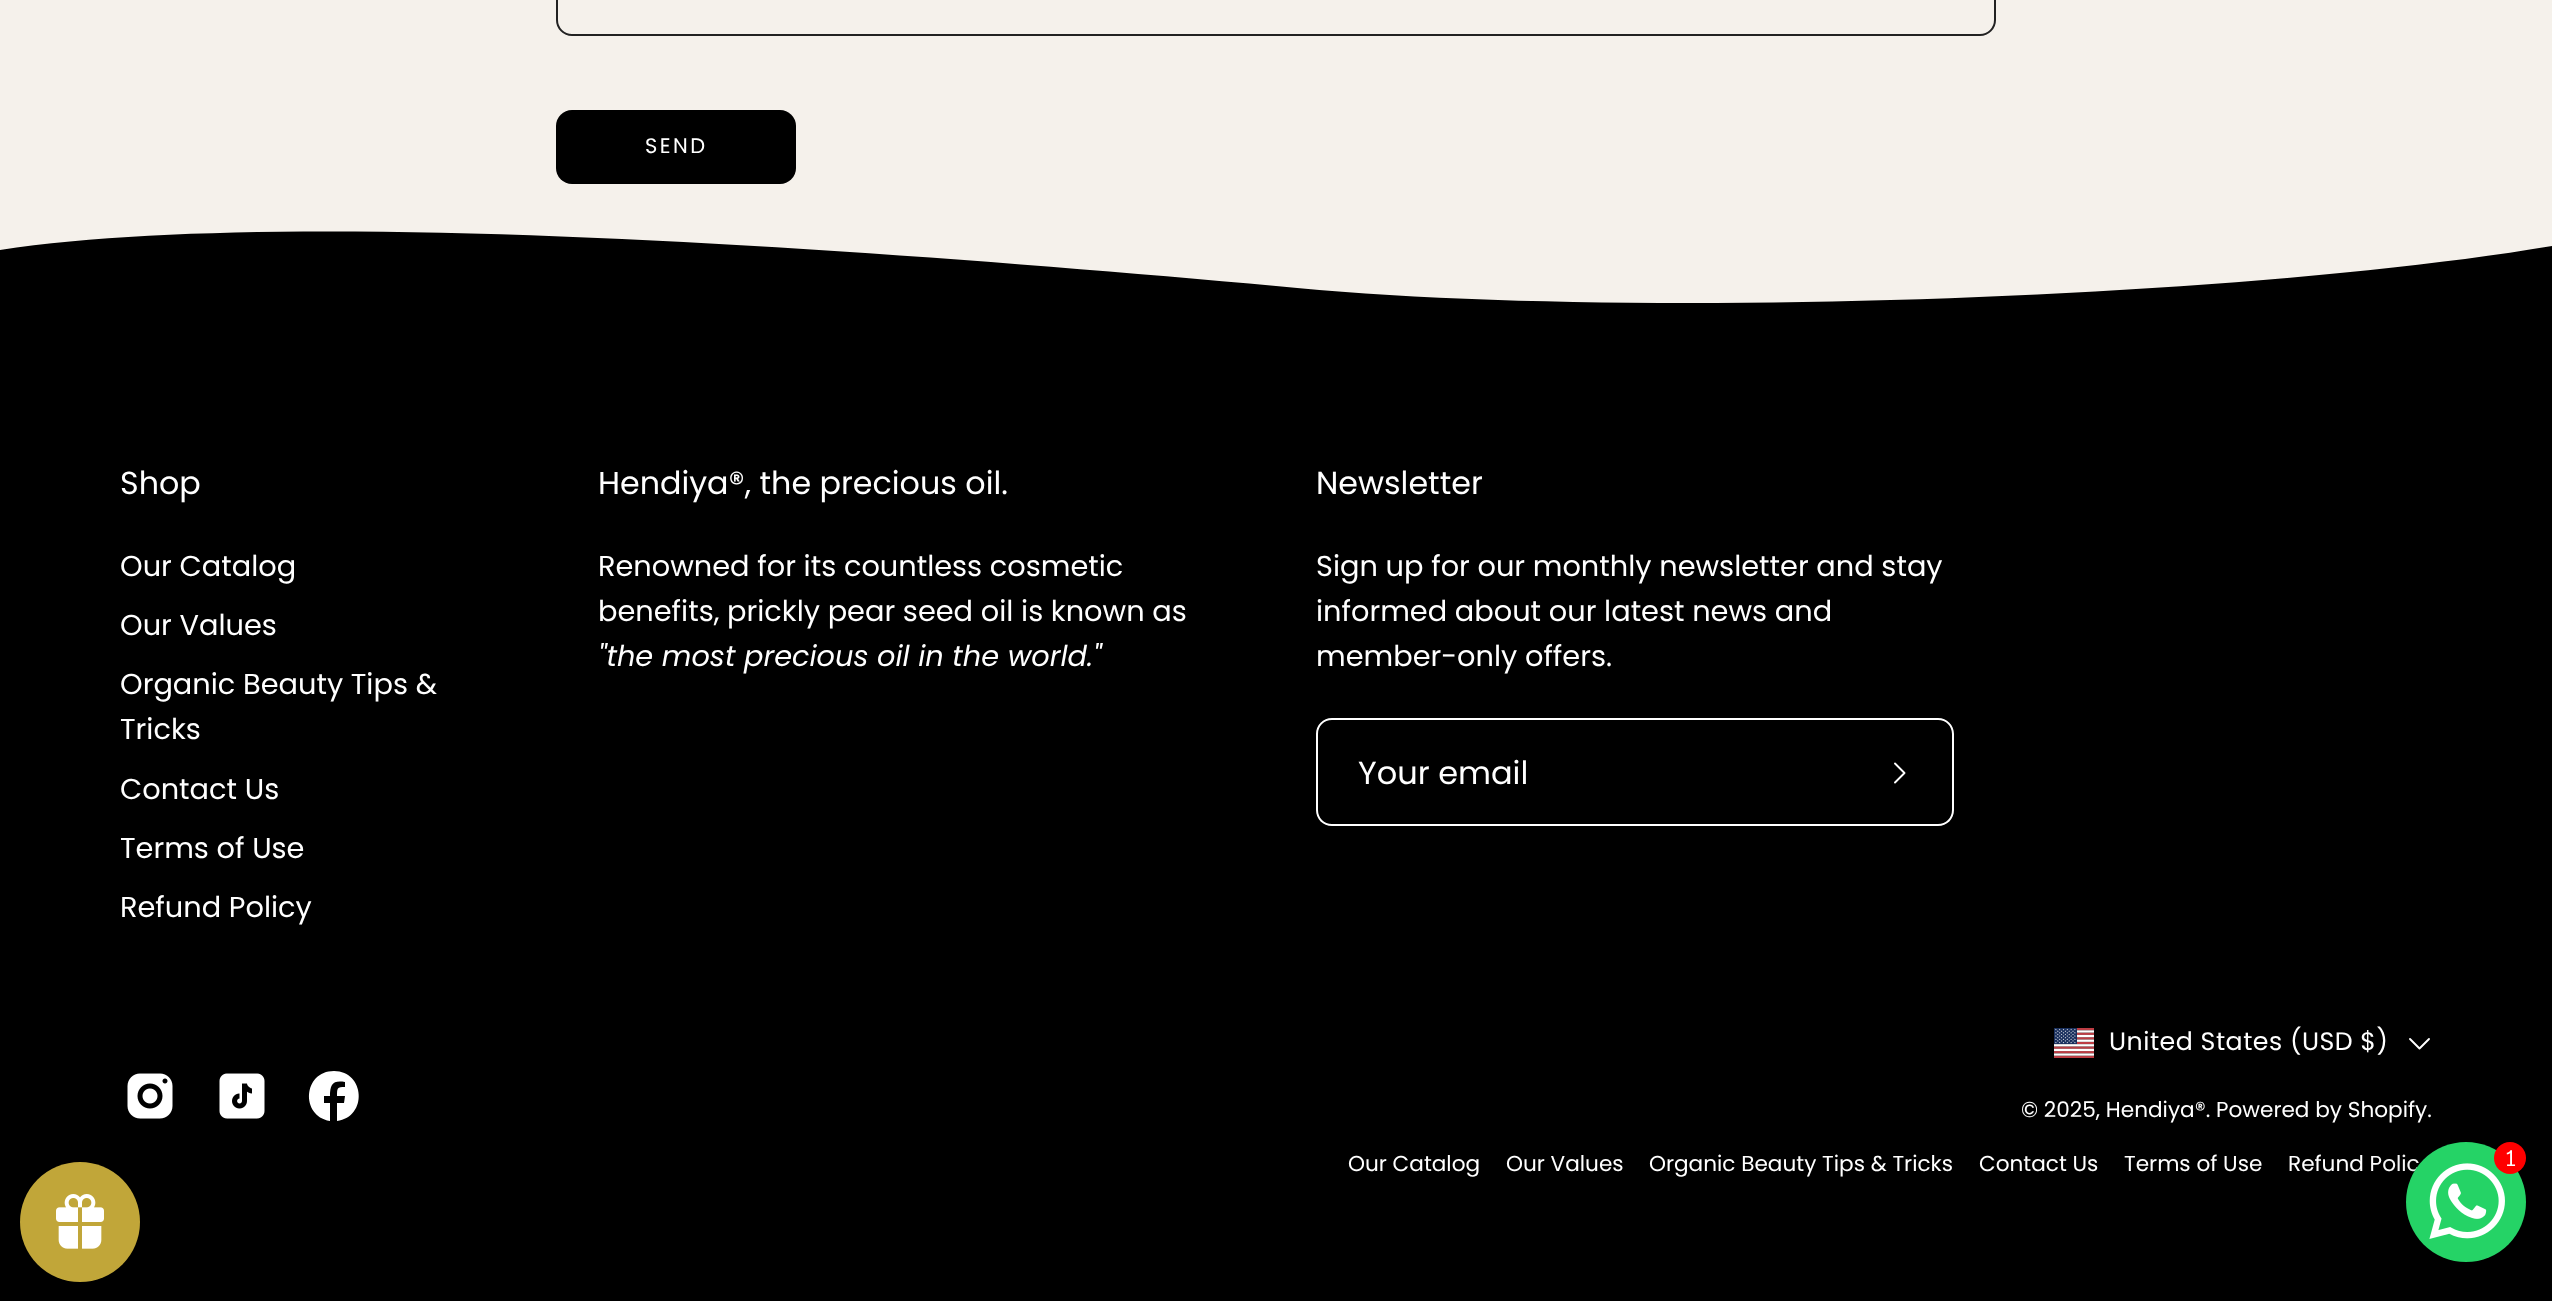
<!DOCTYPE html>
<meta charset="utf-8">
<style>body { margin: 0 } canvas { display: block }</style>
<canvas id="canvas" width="2552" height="1301"></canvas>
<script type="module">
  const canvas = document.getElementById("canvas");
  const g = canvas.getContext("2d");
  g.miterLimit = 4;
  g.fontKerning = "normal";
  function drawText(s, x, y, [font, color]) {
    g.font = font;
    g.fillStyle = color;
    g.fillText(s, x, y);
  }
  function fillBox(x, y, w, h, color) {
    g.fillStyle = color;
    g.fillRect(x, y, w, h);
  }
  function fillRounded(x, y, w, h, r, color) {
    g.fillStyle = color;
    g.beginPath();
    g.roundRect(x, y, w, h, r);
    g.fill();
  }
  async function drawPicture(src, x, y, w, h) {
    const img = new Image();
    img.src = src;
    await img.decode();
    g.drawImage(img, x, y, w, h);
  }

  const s1 = ["21px Poppins", "#FFFFFF"];
  const s2 = ["31.75px Poppins", "#FFFFFF"];
  const s3 = ["28.8px Poppins", "#FFFFFF"];
  const s4 = ["italic 28.8px Poppins", "#FFFFFF"];
  const s5 = ["32px Poppins", "#FFFFFF"];
  const s6 = ["25.25px Poppins", "#FFFFFF"];
  const s7 = ["21.6px Poppins", "#FFFFFF"];
  const s8 = ["22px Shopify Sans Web", "#FFFFFF"];

  fillBox(0, 0, 2552, 1301, "#000000");
  fillBox(0, 0, 2552, 303, "#F5F1EB");
  g.beginPath();
  g.roundRect(557, -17, 1438, 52, 15);
  g.strokeStyle = "#222222";
  g.lineWidth = 2;
  g.stroke();
  fillRounded(556, 110, 240, 74, 16, "#000000");
  g.letterSpacing = "2.5px";
  drawText("SEND", 645, 153, s1);
  g.save();
  g.beginPath();
  g.rect(0, 230, 2552, 114);
  g.clip();
  g.fillStyle = "#000000";
  g.beginPath();
  g.moveTo(0, 250);
  g.bezierCurveTo(292, 206, 875, 250, 1276, 286);
  g.bezierCurveTo(1604, 320, 2224, 301, 2552, 246);
  g.lineTo(2552, 346);
  g.lineTo(0, 346);
  g.fill();
  g.restore();
  g.letterSpacing = "0px";
  drawText("Shop", 120, 494, s2);
  drawText("Our Catalog", 120, 576, s3);
  drawText("Our Values", 120, 635, s3);
  drawText("Organic Beauty Tips &", 120, 694, s3);
  drawText("Tricks", 120, 739, s3);
  drawText("Contact Us", 120, 799, s3);
  drawText("Terms of Use", 120, 858, s3);
  drawText("Refund Policy", 120, 917, s3);
  drawText("Hendiya®, the precious oil.", 598, 494, s2);
  drawText("Renowned for its countless cosmetic", 598, 576, s3);
  drawText("benefits, prickly pear seed oil is known as", 598, 621, s3);
  drawText("\"the most precious oil in the world.\"", 598, 666, s4);
  drawText("Newsletter", 1316, 494, s2);
  drawText("Sign up for our monthly newsletter and stay", 1316, 576, s3);
  drawText("informed about our latest news and", 1316, 621, s3);
  drawText("member-only offers.", 1316, 666, s3);
  g.beginPath();
  g.moveTo(1332, 718);
  g.lineTo(1846, 718);
  g.lineTo(1846, 826);
  g.lineTo(1332, 826);
  g.bezierCurveTo(1323, 826, 1316, 819, 1316, 810);
  g.lineTo(1316, 734);
  g.bezierCurveTo(1316, 725, 1323, 718, 1332, 718);
  g.closePath();
  g.moveTo(1332, 720);
  g.lineTo(1846, 720);
  g.lineTo(1846, 824);
  g.lineTo(1332, 824);
  g.bezierCurveTo(1324, 824, 1318, 818, 1318, 810);
  g.lineTo(1318, 734);
  g.bezierCurveTo(1318, 726, 1324, 720, 1332, 720);
  g.closePath();
  g.fill("evenodd");
  drawText("Your email", 1358, 784, s5);
  g.beginPath();
  g.moveTo(1846, 718);
  g.lineTo(1938, 718);
  g.bezierCurveTo(1947, 718, 1954, 725, 1954, 734);
  g.lineTo(1954, 810);
  g.bezierCurveTo(1954, 819, 1947, 826, 1938, 826);
  g.lineTo(1846, 826);
  g.closePath();
  g.moveTo(1846, 720);
  g.lineTo(1938, 720);
  g.bezierCurveTo(1946, 720, 1952, 726, 1952, 734);
  g.lineTo(1952, 810);
  g.bezierCurveTo(1952, 818, 1946, 824, 1938, 824);
  g.lineTo(1846, 824);
  g.closePath();
  g.fill("evenodd");
  g.beginPath();
  g.moveTo(1895, 763.5);
  g.lineTo(1904.5, 773);
  g.lineTo(1895, 782.5);
  g.strokeStyle = "#FFFFFF";
  g.lineWidth = 1.9;
  g.lineCap = "round";
  g.lineJoin = "round";
  g.stroke();
  await drawPicture("pic1.png", 127, 1073, 46, 46);
  await drawPicture("pic2.png", 219, 1073, 46, 46);
  g.beginPath();
  g.moveTo(334, 1071);
  g.bezierCurveTo(303, 1071, 300, 1116, 330, 1121);
  g.lineTo(330, 1103);
  g.lineTo(324, 1103);
  g.lineTo(324, 1096);
  g.lineTo(330, 1096);
  g.bezierCurveTo(330, 1084, 333, 1080, 345, 1082);
  g.lineTo(345, 1087);
  g.bezierCurveTo(337, 1087, 337, 1088, 337, 1096);
  g.lineTo(345, 1096);
  g.lineTo(344, 1103);
  g.lineTo(337, 1103);
  g.lineTo(337, 1121);
  g.bezierCurveTo(368, 1117, 365, 1071, 334, 1071);
  g.closePath();
  g.fill();
  await drawPicture("pic3.png", 2054, 1028, 40, 30);
  g.letterSpacing = "0.5px";
  drawText("United States (USD $)", 2109, 1050, s6);
  g.beginPath();
  g.moveTo(2429, 1039);
  g.lineTo(2419.5, 1048.5);
  g.lineTo(2410, 1039);
  g.stroke();
  g.letterSpacing = "0px";
  drawText("© 2025, Hendiya®. Powered by Shopify.", 2021, 1117, s7);
  drawText("Our Catalog", 1348, 1171, s7);
  drawText("Our Values", 1506, 1171, s7);
  drawText("Organic Beauty Tips & Tricks", 1649, 1171, s7);
  drawText("Contact Us", 1979, 1171, s7);
  drawText("Terms of Use", 2124, 1171, s7);
  drawText("Refund Polic", 2288, 1171, s7);
  g.fillStyle = "rgba(0, 0, 0, 0.16)";
  g.filter = "blur(32px)";
  g.beginPath();
  g.roundRect(2406, 1146, 120, 120, 60);
  g.fill();
  g.filter = "none";
  g.fillStyle = "#25D366";
  g.beginPath();
  g.arc(2466, 1202, 60, 0, Math.PI * 2);
  g.fill();
  await drawPicture("pic4.png", 2429, 1163, 76, 76);
  g.fillStyle = "#FF0000";
  g.beginPath();
  g.arc(2510, 1158, 16, 0, Math.PI * 2);
  g.fill();
  drawText("1", 2506, 1166, s8);
  g.fillStyle = "#C1A639";
  g.beginPath();
  g.arc(80, 1222, 60, 0, Math.PI * 2);
  g.fill();
  await drawPicture("pic5.png", 56, 1194, 48, 55);
</script>
